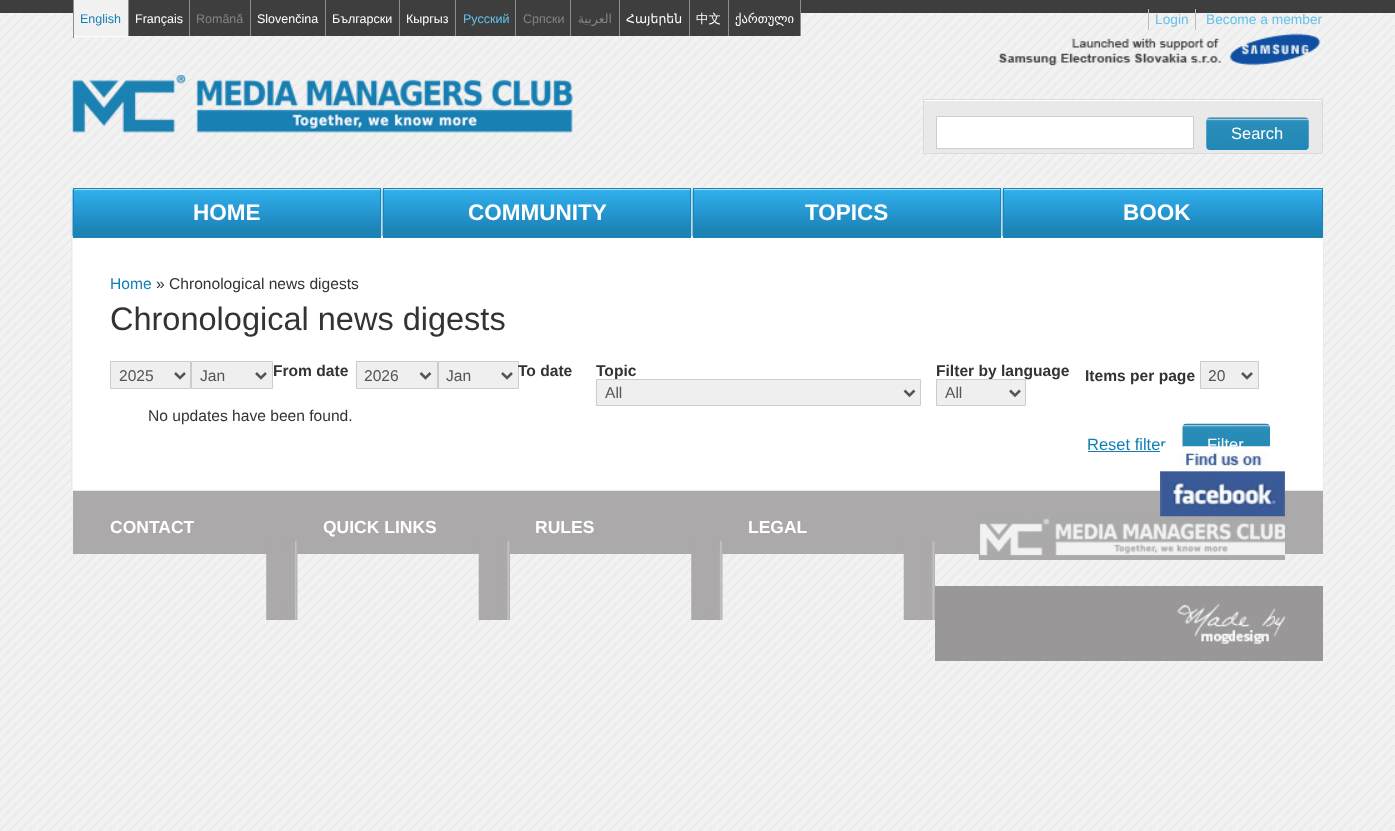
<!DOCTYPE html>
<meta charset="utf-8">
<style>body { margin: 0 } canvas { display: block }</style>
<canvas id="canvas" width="1395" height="831"></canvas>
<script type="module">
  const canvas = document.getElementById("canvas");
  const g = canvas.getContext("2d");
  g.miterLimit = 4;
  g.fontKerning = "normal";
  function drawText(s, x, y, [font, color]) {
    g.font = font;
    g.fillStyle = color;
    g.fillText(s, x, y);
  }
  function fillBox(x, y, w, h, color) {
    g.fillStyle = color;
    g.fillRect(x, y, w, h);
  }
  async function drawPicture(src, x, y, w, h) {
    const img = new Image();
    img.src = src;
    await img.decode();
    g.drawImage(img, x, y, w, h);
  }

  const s1 = ["12.5px Liberation Sans", "#117FB2"];
  const s2 = ["12.5px Liberation Sans", "#FFFFFF"];
  const s3 = ["12.5px Liberation Sans", "#848484"];
  const s4 = ["12.5px Liberation Sans", "#66C2E9"];
  const s5 = ["12.5px DejaVu Sans", "#848484"];
  const s6 = ["12.5px DejaVu Sans", "#FFFFFF"];
  const s7 = ["500 12.5px WenQuanYi Zen Hei", "#FFFFFF"];
  const s8 = ["13.75px Liberation Sans", "#66C2E9"];
  const s9 = ["16.5px Liberation Sans", "#FFFFFF"];
  const s10 = ["bold 22.5px Liberation Sans", "#FFFFFF"];
  const s11 = ["15.6px Liberation Sans", "#117FB2"];
  const s12 = ["15.6px Liberation Sans", "#333333"];
  const s13 = ["32.5px Liberation Sans", "#333333"];
  const s14 = ["15.6px Liberation Sans", "#555555"];
  const s15 = ["bold 15.6px Liberation Sans", "#333333"];
  const s16 = ["16.5px Liberation Sans", "#117FB2"];
  const s17 = ["bold 17.5px Liberation Sans", "#FFFFFF"];

  fillBox(0, 0, 1395, 831, "#FFFFFF");
  await drawPicture("pic1.png", 0, 13, 1395, 818);
  fillBox(0, 0, 1395, 13, "#3E3E3E");
  fillBox(73, 0, 1, 38, "#8D8D8D");
  fillBox(74, 0, 54, 38, "#F1F1F1");
  fillBox(74, 36, 54, 1, "#FFFFFF");
  drawText("English", 80, 23, s1);
  fillBox(128, 0, 1, 36, "#8D8D8D");
  fillBox(129, 13, 60, 23, "#3E3E3E");
  drawText("Français", 135, 23, s2);
  fillBox(189, 0, 1, 36, "#8D8D8D");
  fillBox(190, 13, 60, 23, "#3E3E3E");
  drawText("Română", 196, 23, s3);
  fillBox(250, 0, 1, 36, "#8D8D8D");
  fillBox(251, 13, 74, 23, "#3E3E3E");
  drawText("Slovenčina", 257, 23, s2);
  fillBox(325, 0, 1, 36, "#8D8D8D");
  fillBox(326, 13, 73, 23, "#3E3E3E");
  drawText("Български", 332, 23, s2);
  fillBox(399, 0, 1, 36, "#8D8D8D");
  fillBox(400, 13, 55, 23, "#3E3E3E");
  drawText("Кыргыз", 406, 23, s2);
  fillBox(455, 0, 1, 36, "#8D8D8D");
  fillBox(456, 13, 59, 23, "#3E3E3E");
  drawText("Русский", 463, 23, s4);
  fillBox(515, 0, 1, 36, "#8D8D8D");
  fillBox(516, 13, 54, 23, "#3E3E3E");
  drawText("Српски", 523, 23, s3);
  fillBox(570, 0, 1, 36, "#8D8D8D");
  fillBox(571, 13, 48, 23, "#3E3E3E");
  g.direction = "rtl";
  drawText("العربية", 612, 23, s5);
  fillBox(619, 0, 1, 36, "#8D8D8D");
  fillBox(620, 13, 69, 23, "#3E3E3E");
  g.direction = "ltr";
  drawText("Հայերեն", 626, 23, s6);
  fillBox(689, 0, 1, 36, "#8D8D8D");
  fillBox(690, 13, 38, 23, "#3E3E3E");
  drawText("中文", 696, 23, s7);
  fillBox(800, 0, 1, 36, "#8D8D8D");
  fillBox(728, 0, 1, 36, "#8D8D8D");
  fillBox(729, 13, 71, 23, "#3E3E3E");
  drawText("ქართული", 735, 23, s6);
  fillBox(1148, 9, 1, 21, "#BBBBBB");
  drawText("Login", 1155, 24, s8);
  fillBox(1195, 9, 1, 21, "#BBBBBB");
  drawText("Become a member", 1206, 24, s8);
  await drawPicture("pic2.png", 998, 33, 323, 33);
  await drawPicture("pic3.png", 72, 75, 501, 58);
  g.fillStyle = "#E9E9E9";
  g.beginPath();
  g.rect(923.5, 99.5, 399, 54);
  g.fill();
  g.strokeStyle = "#DADADA";
  g.stroke();
  fillBox(924, 100, 397, 1, "#FFFFFF");
  g.beginPath();
  g.rect(936.5, 116.5, 257, 32);
  g.fill();
  g.strokeStyle = "#CCCCCC";
  g.stroke();
  await drawPicture("pic4.png", 1206, 117, 103, 33);
  drawText("Search", 1231, 139, s9);
  fillBox(72, 201, 931, 289, "#F6F6F6");
  g.strokeStyle = "#E9E9E9";
  g.strokeRect(71.5, 200.5, 1252, 290);
  fillBox(74, 236, 306, 1, "#1981B3");
  await drawPicture("pic5.png", 72, 188, 310, 49);
  g.strokeStyle = "#1C85B5";
  g.strokeRect(73.5, 188.5, 307, 49);
  drawText("HOME", 193, 220, s10);
  fillBox(384, 236, 306, 1, "#1981B3");
  await drawPicture("pic5.png", 382, 188, 310, 49);
  g.strokeRect(383.5, 188.5, 307, 49);
  drawText("COMMUNITY", 468, 220, s10);
  fillBox(694, 236, 306, 1, "#1981B3");
  await drawPicture("pic5.png", 692, 188, 310, 49);
  g.strokeRect(693.5, 188.5, 307, 49);
  drawText("TOPICS", 805, 220, s10);
  fillBox(1004, 236, 318, 1, "#1981B3");
  await drawPicture("pic6.png", 1002, 188, 320, 49);
  g.strokeRect(1003.5, 188.5, 319, 49);
  drawText("BOOK", 1123, 220, s10);
  fillBox(73, 238, 1250, 252, "#FFFFFF");
  drawText("Home", 110, 289, s11);
  drawText("» Chronological news digests", 156, 289, s12);
  drawText("Chronological news digests", 110, 330, s13);
  g.fillStyle = "#EFEFEF";
  g.beginPath();
  g.rect(110.5, 361.5, 80, 27);
  g.fill();
  g.strokeStyle = "#CCCCCC";
  g.stroke();
  g.beginPath();
  g.moveTo(175, 373);
  g.lineTo(180, 378);
  g.lineTo(185, 373);
  g.strokeStyle = "#555555";
  g.lineWidth = 2.5;
  g.stroke();
  drawText("2025", 119, 381, s14);
  g.fillStyle = "#EFEFEF";
  g.beginPath();
  g.rect(191.5, 361.5, 81, 27);
  g.fill();
  g.strokeStyle = "#CCCCCC";
  g.lineWidth = 1;
  g.stroke();
  g.beginPath();
  g.moveTo(256, 373);
  g.lineTo(261, 378);
  g.lineTo(266, 373);
  g.strokeStyle = "#555555";
  g.lineWidth = 2.5;
  g.stroke();
  drawText("Jan", 200, 381, s14);
  drawText("From date", 273, 376, s15);
  g.fillStyle = "#EFEFEF";
  g.beginPath();
  g.rect(356.5, 361.5, 81, 27);
  g.fill();
  g.strokeStyle = "#CCCCCC";
  g.lineWidth = 1;
  g.stroke();
  g.beginPath();
  g.moveTo(420.5, 373);
  g.lineTo(425.5, 378);
  g.lineTo(430.5, 373);
  g.strokeStyle = "#555555";
  g.lineWidth = 2.5;
  g.stroke();
  drawText("2026", 364, 381, s14);
  g.fillStyle = "#EFEFEF";
  g.beginPath();
  g.rect(438.5, 361.5, 80, 27);
  g.fill();
  g.strokeStyle = "#CCCCCC";
  g.lineWidth = 1;
  g.stroke();
  g.beginPath();
  g.moveTo(502, 373);
  g.lineTo(507, 378);
  g.lineTo(512, 373);
  g.strokeStyle = "#555555";
  g.lineWidth = 2.5;
  g.stroke();
  drawText("Jan", 446, 381, s14);
  drawText("To date", 518, 376, s15);
  drawText("Topic", 596, 376, s15);
  g.fillStyle = "#EFEFEF";
  g.beginPath();
  g.rect(596.5, 379.5, 324, 26);
  g.fill();
  g.strokeStyle = "#CCCCCC";
  g.lineWidth = 1;
  g.stroke();
  g.beginPath();
  g.moveTo(904.5, 390.5);
  g.lineTo(909.5, 395.5);
  g.lineTo(914.5, 390.5);
  g.strokeStyle = "#555555";
  g.lineWidth = 2.5;
  g.stroke();
  drawText("All", 605, 398, s14);
  drawText("Filter by language", 936, 376, s15);
  g.fillStyle = "#EFEFEF";
  g.beginPath();
  g.rect(936.5, 379.5, 89, 26);
  g.fill();
  g.strokeStyle = "#CCCCCC";
  g.lineWidth = 1;
  g.stroke();
  g.beginPath();
  g.moveTo(1010, 390.5);
  g.lineTo(1015, 395.5);
  g.lineTo(1020, 390.5);
  g.strokeStyle = "#555555";
  g.lineWidth = 2.5;
  g.stroke();
  drawText("All", 945, 398, s14);
  drawText("Items per page", 1085, 381, s15);
  g.fillStyle = "#EFEFEF";
  g.beginPath();
  g.rect(1200.5, 361.5, 58, 27);
  g.fill();
  g.strokeStyle = "#CCCCCC";
  g.lineWidth = 1;
  g.stroke();
  g.beginPath();
  g.moveTo(1242, 373);
  g.lineTo(1247, 378);
  g.lineTo(1252, 373);
  g.strokeStyle = "#555555";
  g.lineWidth = 2.5;
  g.stroke();
  drawText("20", 1208, 381, s14);
  drawText("Reset filter", 1087, 450, s16);
  fillBox(1088, 451, 78, 1, "#117FB2");
  await drawPicture("pic7.png", 1182, 423, 88, 24);
  drawText("Filter", 1207, 450, s9);
  drawText("No updates have been found.", 148, 421, s12);
  fillBox(73, 491, 1250, 63, "#ABA9AA");
  await drawPicture("pic8.png", 1160, 446, 125, 71);
  await drawPicture("pic9.png", 266, 540, 32, 80);
  drawText("CONTACT", 110, 533, s17);
  await drawPicture("pic10.png", 478, 540, 32, 80);
  drawText("QUICK LINKS", 323, 533, s17);
  await drawPicture("pic11.png", 691, 540, 32, 80);
  drawText("RULES", 535, 533, s17);
  await drawPicture("pic12.png", 903, 540, 32, 80);
  drawText("LEGAL", 748, 533, s17);
  await drawPicture("pic13.png", 978, 518, 307, 42);
  fillBox(935, 586, 388, 75, "#999798");
  await drawPicture("pic14.png", 1177, 603, 108, 41);
</script>
